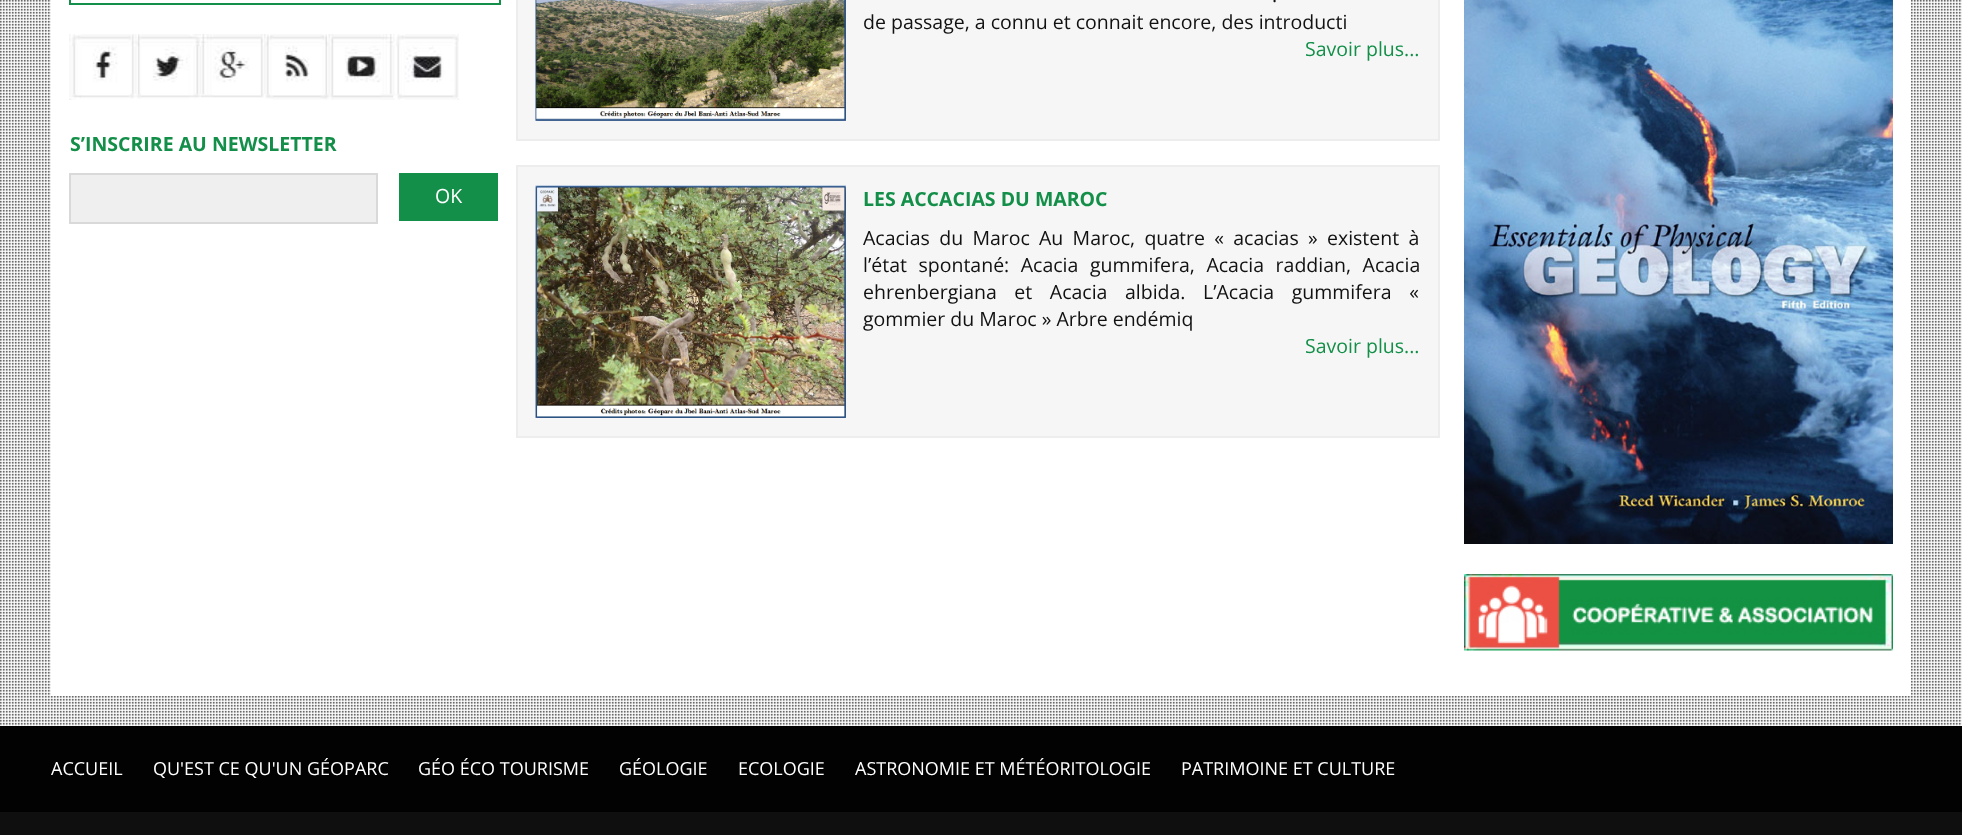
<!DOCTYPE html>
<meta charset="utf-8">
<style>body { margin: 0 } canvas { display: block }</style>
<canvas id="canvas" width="1962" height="835"></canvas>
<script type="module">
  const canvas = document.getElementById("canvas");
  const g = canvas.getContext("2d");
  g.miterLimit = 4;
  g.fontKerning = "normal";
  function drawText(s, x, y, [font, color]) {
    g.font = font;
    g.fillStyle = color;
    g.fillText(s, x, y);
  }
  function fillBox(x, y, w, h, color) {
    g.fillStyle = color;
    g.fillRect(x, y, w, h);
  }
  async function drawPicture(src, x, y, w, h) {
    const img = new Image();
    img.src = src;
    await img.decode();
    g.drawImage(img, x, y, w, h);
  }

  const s1 = ["bold 19.5px Open Sans", "#138F49"];
  const s2 = ["19.5px Open Sans", "#FFFFFF"];
  const s3 = ["19.5px Open Sans", "#111111"];
  const s4 = ["19.5px Open Sans", "#138F49"];
  const s5 = ["18px Open Sans", "#FFFFFF"];

  fillBox(0, 0, 1962, 835, "#FFFFFF");
  await drawPicture("pic1.png", 0, 0, 1962, 726);
  fillBox(51, 0, 1860, 696, "#FFFFFF");
  g.strokeStyle = "#138F49";
  g.lineWidth = 2;
  g.strokeRect(70, -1, 430, 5);
  await drawPicture("pic2.png", 69, 34, 69, 66);
  await drawPicture("pic3.png", 138, 34, 63, 65);
  await drawPicture("pic4.png", 201, 34, 63, 64);
  await drawPicture("pic5.png", 264, 34, 63, 66);
  await drawPicture("pic6.png", 327, 34, 66, 66);
  await drawPicture("pic7.png", 393, 34, 66, 66);
  drawText("S’INSCRIRE AU NEWSLETTER", 70, 151, s1);
  g.fillStyle = "#EFEFEF";
  g.beginPath();
  g.rect(70, 174, 307, 49);
  g.fill();
  g.strokeStyle = "#D9D9D9";
  g.stroke();
  fillBox(399, 173, 99, 48, "#138F49");
  drawText("OK", 435, 203, s2);
  g.fillStyle = "#F6F6F6";
  g.beginPath();
  g.rect(517, -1, 922, 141);
  g.fill();
  g.strokeStyle = "#EEEDED";
  g.stroke();
  await drawPicture("pic8.png", 535, 0, 311, 121);
  drawText(".", 1272, 2, s3);
  drawText("de passage, a connu et connait encore, des introducti", 863, 29, s3);
  drawText("Savoir plus...", 1305, 56, s4);
  g.fillStyle = "#F6F6F6";
  g.beginPath();
  g.rect(517, 166, 922, 271);
  g.fill();
  g.stroke();
  await drawPicture("pic9.png", 535, 185, 311, 233);
  drawText("LES ACCACIAS DU MAROC", 863, 206, s1);
  g.wordSpacing = "4.25px";
  drawText("Acacias du Maroc", 863, 245, s3);
  drawText("Au Maroc, quatre « acacias » existent à", 1039, 245, s3);
  g.wordSpacing = "6.5px";
  drawText("l’état spontané: Acacia gummifera, Acacia raddian, Acacia", 863, 272, s3);
  g.wordSpacing = "12.5px";
  drawText("ehrenbergiana et Acacia albida. L’Acacia gummifera «", 863, 299, s3);
  g.wordSpacing = "0px";
  drawText("gommier du Maroc » Arbre endémiq", 863, 326, s3);
  drawText("Savoir plus...", 1305, 353, s4);
  await drawPicture("pic10.png", 1464, 0, 429, 544);
  await drawPicture("pic11.png", 1464, 574, 429, 77);
  fillBox(0, 726, 1962, 86, "#020202");
  drawText("ACCUEIL", 51, 775, s5);
  drawText("QU'EST CE QU'UN GÉOPARC", 153, 775, s5);
  drawText("GÉO ÉCO TOURISME", 418, 775, s5);
  drawText("GÉOLOGIE", 619, 775, s5);
  drawText("ECOLOGIE", 738, 775, s5);
  drawText("ASTRONOMIE ET MÉTÉORITOLOGIE", 855, 775, s5);
  drawText("PATRIMOINE ET CULTURE", 1181, 775, s5);
  fillBox(0, 812, 1962, 23, "#0F0F0F");
</script>
